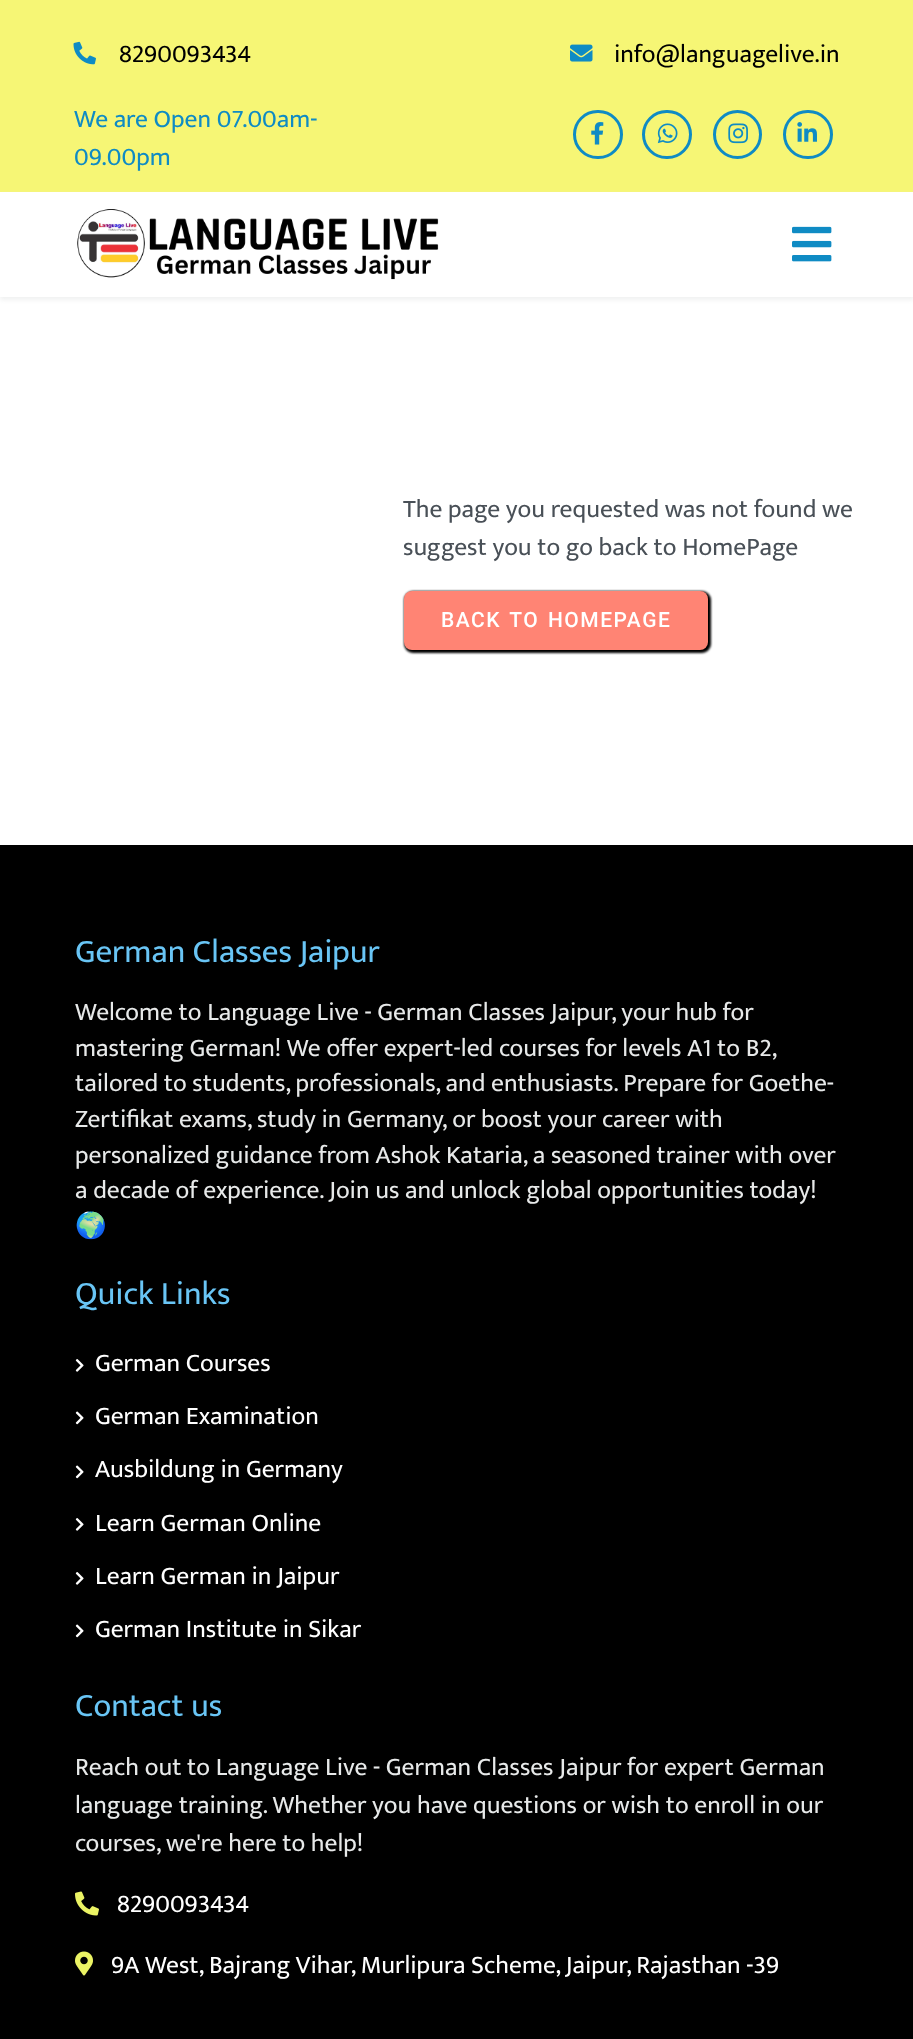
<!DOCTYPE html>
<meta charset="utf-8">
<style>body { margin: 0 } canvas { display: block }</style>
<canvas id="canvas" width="913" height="2039"></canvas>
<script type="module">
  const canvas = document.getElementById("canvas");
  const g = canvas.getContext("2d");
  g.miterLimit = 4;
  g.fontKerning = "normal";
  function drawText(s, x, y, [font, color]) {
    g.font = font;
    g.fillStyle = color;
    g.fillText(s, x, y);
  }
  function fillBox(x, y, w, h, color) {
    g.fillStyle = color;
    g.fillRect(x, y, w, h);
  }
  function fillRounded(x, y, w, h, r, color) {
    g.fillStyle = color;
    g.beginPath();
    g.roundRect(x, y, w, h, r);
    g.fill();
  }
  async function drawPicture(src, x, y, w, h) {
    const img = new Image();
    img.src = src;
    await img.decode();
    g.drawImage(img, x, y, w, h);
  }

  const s1 = ["25.5px Mukta", "#000000"];
  const s2 = ["25.5px Mukta", "#0F8BC4"];
  const s3 = ["25.5px Mukta", "#495057"];
  const s4 = ["500 21px Roboto", "#FFFFFF"];
  const s5 = ["33px Mukta", "#69C5F5"];
  const s6 = ["25.5px Mukta", "#E7E9E9"];
  const s7 = ["25.5px Noto Color Emoji", "#E7E9E9"];
  const s8 = ["25.5px Mukta", "#FFFFFF"];

  fillBox(0, 0, 913, 2039, "#FFFFFF");
  fillBox(0, 0, 913, 192, "#F6F675");
  await drawPicture("pic1.png", 73, 41, 23, 24);
  drawText("8290093434", 119, 62, s1);
  await drawPicture("pic2.png", 570, 44, 23, 18);
  drawText("info@languagelive.in", 614, 62, s1);
  drawText("We are Open 07.00am-", 74, 127, s2);
  drawText("09.00pm", 74, 165, s2);
  g.beginPath();
  g.roundRect(574.5, 111.5, 47, 46, 23);
  g.strokeStyle = "#0F8BC4";
  g.lineWidth = 3;
  g.stroke();
  await drawPicture("pic3.png", 591, 122, 13, 23);
  g.beginPath();
  g.roundRect(643.5, 111.5, 47, 46, 23);
  g.stroke();
  await drawPicture("pic4.png", 657, 123, 21, 21);
  g.beginPath();
  g.arc(737.5, 134.5, 23, 0, Math.PI * 2);
  g.stroke();
  await drawPicture("pic5.png", 728, 123, 20, 21);
  g.beginPath();
  g.roundRect(784.5, 111.5, 47, 46, 23);
  g.stroke();
  await drawPicture("pic6.png", 797, 122, 20, 20);
  g.save();
  g.beginPath();
  g.moveTo(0, 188);
  g.lineTo(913, 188);
  g.lineTo(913, 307);
  g.lineTo(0, 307);
  g.closePath();
  g.moveTo(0, 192);
  g.lineTo(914, 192);
  g.lineTo(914, 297);
  g.lineTo(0, 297);
  g.closePath();
  g.clip("evenodd");
  g.fillStyle = "#F0F1F1";
  g.filter = "blur(2px)";
  g.beginPath();
  g.rect(0, 195, 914, 105);
  g.fill();
  g.filter = "none";
  g.restore();
  await drawPicture("pic7.png", 77, 209, 362, 71);
  await drawPicture("pic8.png", 792, 226, 40, 36);
  drawText("The page you requested was not found we", 403, 517, s3);
  drawText("suggest you to go back to HomePage", 403, 555, s3);
  g.fillStyle = "#000000";
  g.filter = "blur(1px)";
  g.beginPath();
  g.roundRect(404, 591, 307, 62, 9);
  g.fill();
  g.filter = "none";
  fillRounded(404, 591, 304, 59, 8, "#FF8474");
  g.letterSpacing = "1.5px";
  g.wordSpacing = "2px";
  drawText("BACK TO HOMEPAGE", 441, 627, s4);
  fillBox(0, 845, 913, 1194, "#000000");
  g.letterSpacing = "0px";
  g.wordSpacing = "0px";
  drawText("German Classes Jaipur", 75, 962, s5);
  drawText("Welcome to Language Live - German Classes Jaipur, your hub for", 75, 1020, s6);
  drawText("mastering German! We offer expert-led courses for levels A1 to B2,", 75, 1056, s6);
  drawText("tailored to students, professionals, and enthusiasts. Prepare for Goethe-", 75, 1091, s6);
  drawText("Zertifikat exams, study in Germany, or boost your career with", 75, 1127, s6);
  drawText("personalized guidance from Ashok Kataria, a seasoned trainer with over", 75, 1163, s6);
  drawText("a decade of experience. Join us and unlock global opportunities today!", 75, 1198, s6);
  drawText("🌍", 75, 1234, s7);
  drawText("Quick Links", 75, 1304, s5);
  await drawPicture("pic9.png", 75, 1359, 9, 13);
  drawText("German Courses", 95, 1371, s8);
  await drawPicture("pic10.png", 75, 1411, 9, 14);
  drawText("German Examination", 95, 1424, s8);
  await drawPicture("pic10.png", 75, 1465, 9, 14);
  drawText("Ausbildung in Germany", 95, 1477, s8);
  await drawPicture("pic9.png", 75, 1518, 9, 13);
  drawText("Learn German Online", 95, 1531, s8);
  await drawPicture("pic9.png", 75, 1572, 9, 13);
  drawText("Learn German in Jaipur", 95, 1584, s8);
  await drawPicture("pic10.png", 75, 1624, 9, 14);
  drawText("German Institute in Sikar", 95, 1637, s8);
  drawText("Contact us", 75, 1716, s5);
  drawText("Reach out to Language Live - German Classes Jaipur for expert German", 75, 1775, s6);
  drawText("language training. Whether you have questions or wish to enroll in our", 75, 1813, s6);
  drawText("courses, we're here to help!", 75, 1851, s6);
  await drawPicture("pic11.png", 75, 1891, 24, 25);
  drawText("8290093434", 117, 1912, s8);
  await drawPicture("pic12.png", 75, 1951, 18, 25);
  drawText("9A West, Bajrang Vihar, Murlipura Scheme, Jaipur, Rajasthan -39", 111, 1973, s8);
</script>
